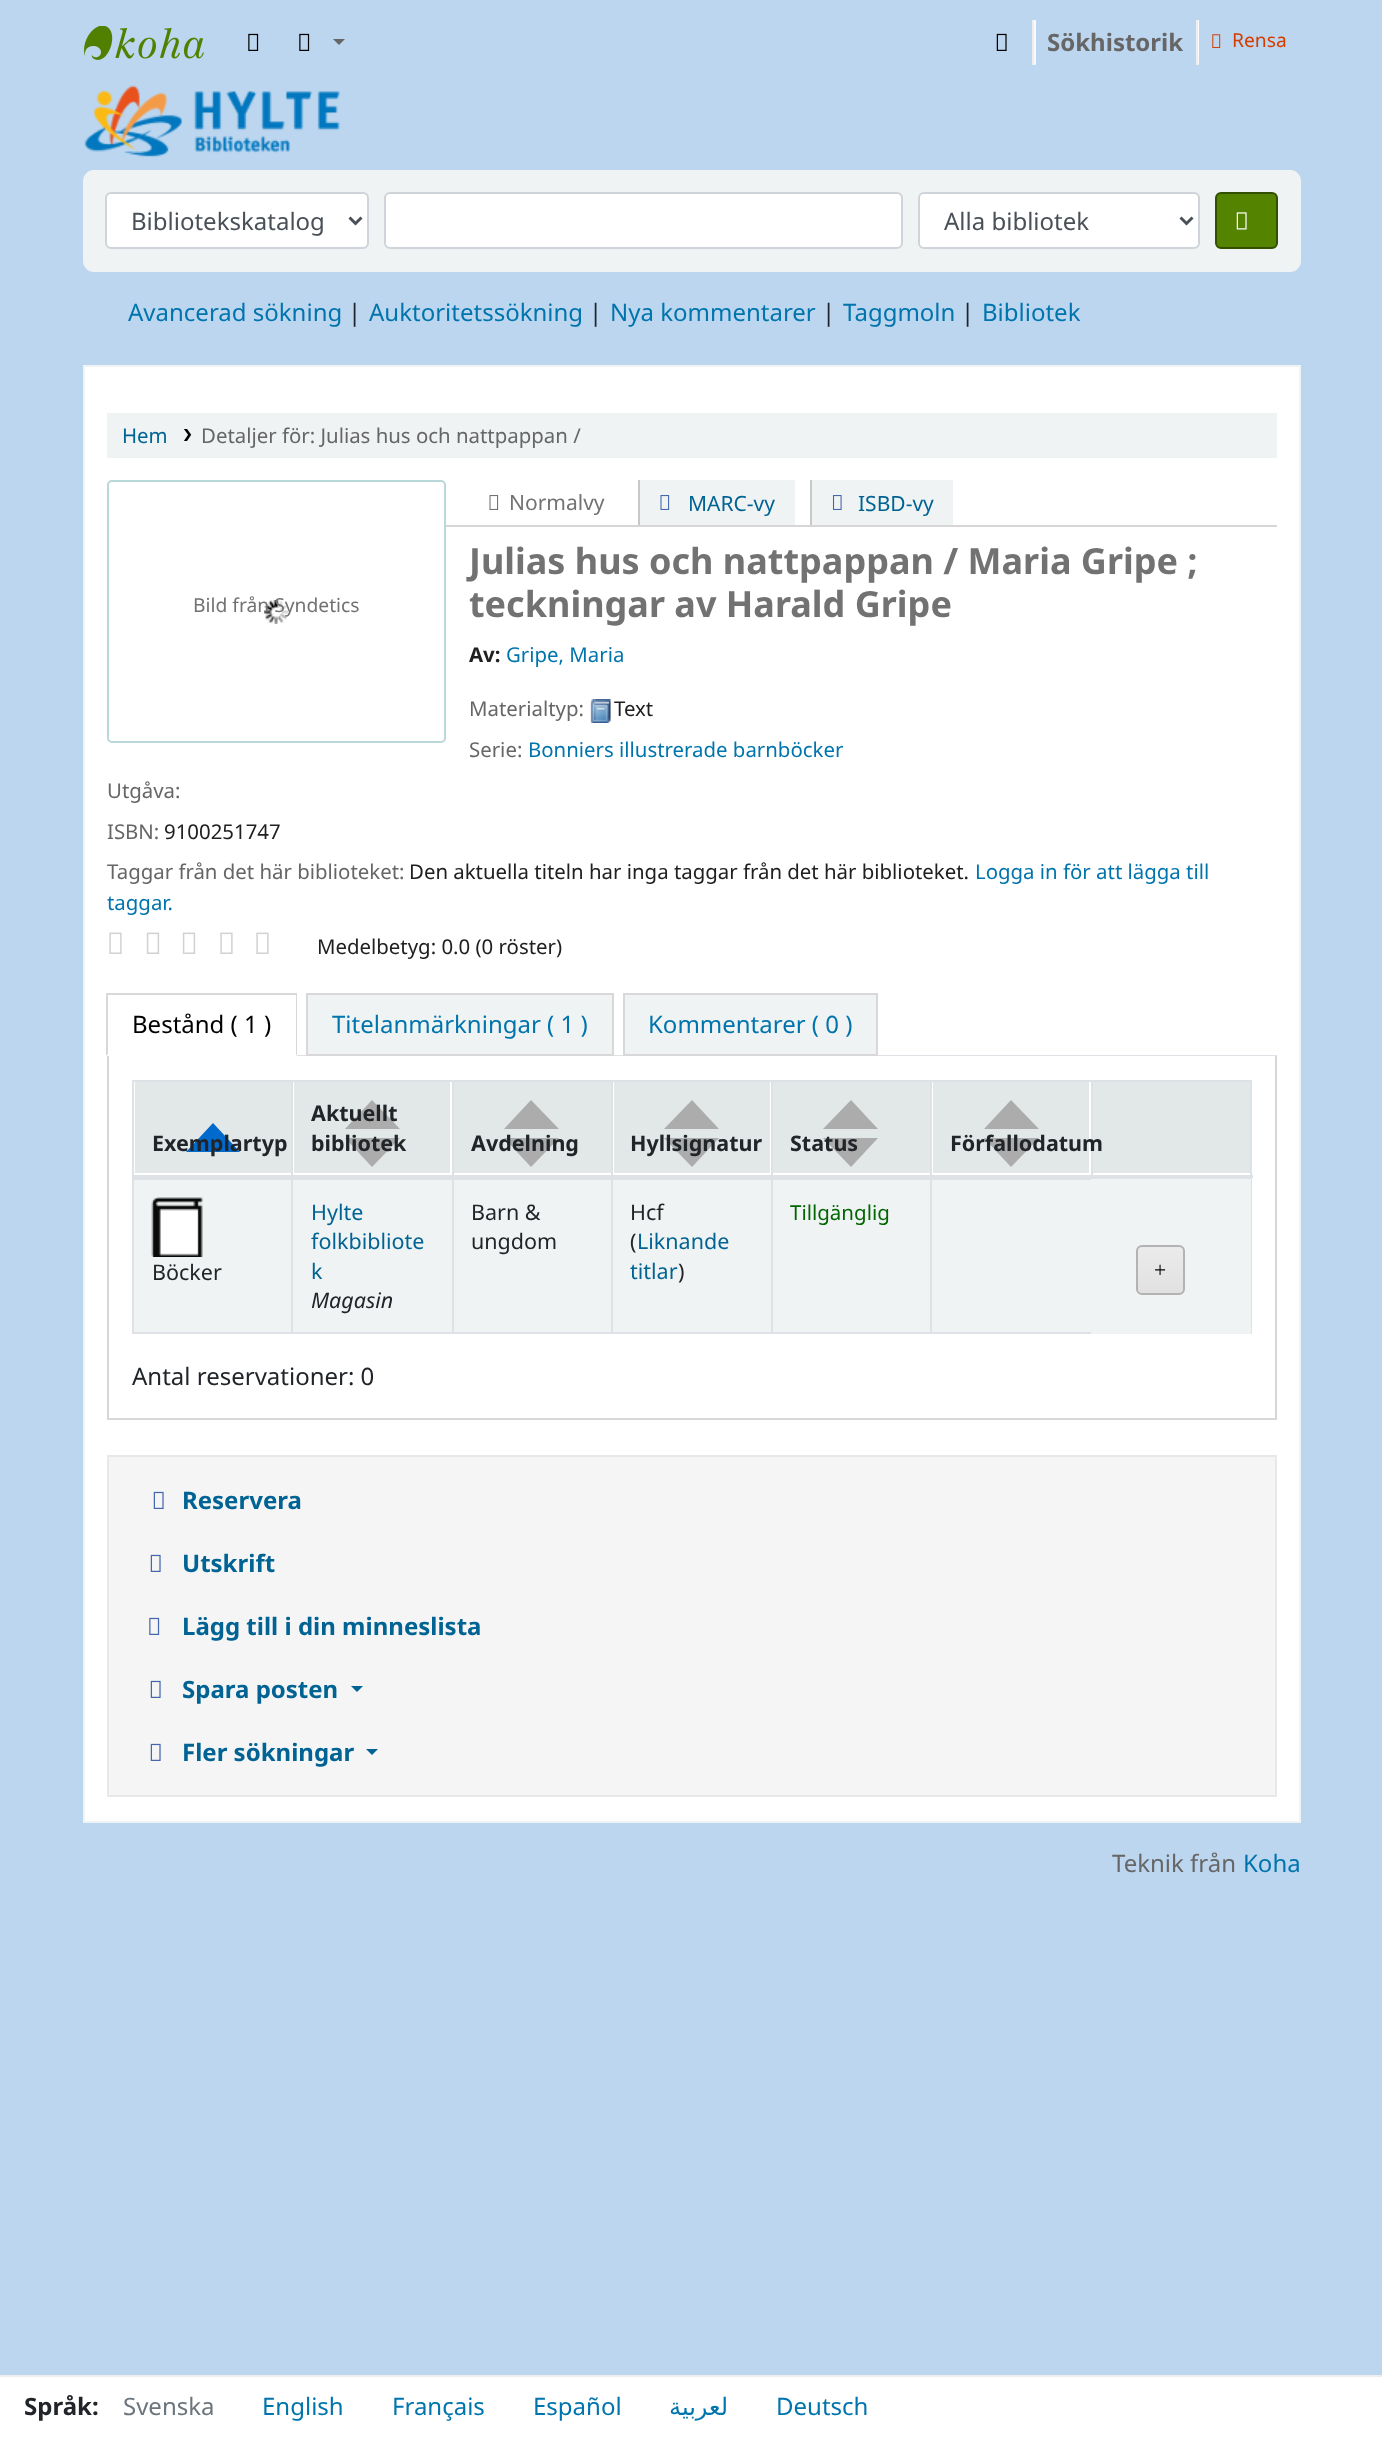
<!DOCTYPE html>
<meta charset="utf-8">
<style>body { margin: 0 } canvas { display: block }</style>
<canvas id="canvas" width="1382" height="2442"></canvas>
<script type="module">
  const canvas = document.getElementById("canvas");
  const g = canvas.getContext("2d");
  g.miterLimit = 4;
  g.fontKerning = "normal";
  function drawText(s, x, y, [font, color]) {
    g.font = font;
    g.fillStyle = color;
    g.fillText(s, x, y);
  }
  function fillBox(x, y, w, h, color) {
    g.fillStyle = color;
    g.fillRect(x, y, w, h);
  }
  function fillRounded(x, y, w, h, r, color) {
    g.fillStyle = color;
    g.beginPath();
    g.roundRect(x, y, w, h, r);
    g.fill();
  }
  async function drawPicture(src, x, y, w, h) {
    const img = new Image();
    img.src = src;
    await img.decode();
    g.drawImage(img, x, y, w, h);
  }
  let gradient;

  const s1 = ["bold 24px Noto Sans", "#666666"];
  const s2 = ["19.25px Noto Sans", "#D43C00"];
  const s3 = ["24px Noto Sans", "#495057"];
  const s4 = ["24px Noto Sans", "#0074AD"];
  const s5 = ["24px Noto Sans", "#212529"];
  const s6 = ["20.4px Noto Sans", "#006394"];
  const s7 = ["20.4px Noto Sans", "#666666"];
  const s8 = ["21px Noto Sans", "#727272"];
  const s9 = ["21px Noto Sans", "#006394"];
  const s10 = ["bold 36px Noto Sans", "#727272"];
  const s11 = ["bold 20.4px Noto Sans", "#202020"];
  const s12 = ["20.4px Noto Sans", "#0074AD"];
  const s13 = ["20.4px Noto Sans", "#202020"];
  const s14 = ["19.25px Noto Sans", "#727272"];
  const s15 = ["24px Noto Sans", "#000000"];
  const s16 = ["bold 21.5px Noto Sans", "#212529"];
  const s17 = ["21.5px Noto Sans", "#006394"];
  const s18 = ["italic 21.5px Noto Sans", "#212529"];
  const s19 = ["21.5px Noto Sans", "#212529"];
  const s20 = ["20.5px Noto Sans", "#006600"];
  const s21 = ["21.5px Liberation Serif", "#000000"];
  const s22 = ["bold 24px Noto Sans", "#006394"];
  const s23 = ["24px Noto Sans", "#666666"];
  const s24 = ["bold 24px Noto Sans", "#212529"];
  const s25 = ["24px Noto Sans", "#6C757D"];
  const s26 = ["24px DejaVu Sans", "#0074AD"];

  fillBox(0, 0, 1382, 2442, "#BCD6EF");
  await drawPicture("pic1.png", 84, 26, 120, 34);
  await drawPicture("pic2.png", 248, 33, 11, 18);
  await drawPicture("pic2.png", 299, 33, 11, 18);
  g.fillStyle = "#666666";
  g.beginPath();
  g.moveTo(333, 39);
  g.lineTo(345, 39);
  g.lineTo(339, 45);
  g.closePath();
  g.fill();
  await drawPicture("pic3.png", 996, 33, 11, 18);
  fillBox(1034, 20, 2, 45, "#FCF9FC");
  fillBox(1032, 63, 3, 2, "#EEEEEE");
  fillBox(1032, 20, 2, 45, "#EEEEEE");
  drawText("Sökhistorik", 1047, 51, s1);
  fillBox(1198, 20, 1, 45, "#FCF9FC");
  fillBox(1196, 63, 3, 2, "#EEEEEE");
  fillBox(1196, 20, 2, 45, "#EEEEEE");
  await drawPicture("pic4.png", 1212, 34, 9, 14);
  drawText("Rensa", 1232, 47, s2);
  await drawPicture("pic5.png", 84, 85, 257, 72);
  fillRounded(83, 170, 1218, 102, 11, "#F0F3F3");
  g.fillStyle = "#FFFFFF";
  g.beginPath();
  g.roundRect(106, 193, 262, 55, 5);
  g.fill();
  g.strokeStyle = "#CED4DA";
  g.lineWidth = 2;
  g.stroke();
  g.beginPath();
  g.moveTo(349.5, 217.5);
  g.lineTo(355.5, 223.5);
  g.lineTo(361.5, 217.5);
  g.strokeStyle = "#495057";
  g.lineWidth = 3;
  g.stroke();
  drawText("Bibliotekskatalog", 131, 230, s3);
  g.fillStyle = "#FFFFFF";
  g.beginPath();
  g.roundRect(385, 193, 517, 55, 5);
  g.fill();
  g.strokeStyle = "#CED4DA";
  g.lineWidth = 2;
  g.stroke();
  g.beginPath();
  g.roundRect(919, 193, 280, 55, 5);
  g.fill();
  g.stroke();
  g.beginPath();
  g.moveTo(1180.5, 217.5);
  g.lineTo(1186.5, 223.5);
  g.lineTo(1192.5, 217.5);
  g.strokeStyle = "#495057";
  g.lineWidth = 3;
  g.stroke();
  drawText("Alla bibliotek", 944, 230, s3);
  g.fillStyle = "#548300";
  g.beginPath();
  g.roundRect(1216, 193, 61, 55, 5);
  g.fill();
  g.strokeStyle = "#335000";
  g.lineWidth = 2;
  g.stroke();
  await drawPicture("pic6.png", 1236, 212, 11, 18);
  drawText("Avancerad sökning", 128, 321, s4);
  drawText("|", 348, 321, s5);
  drawText("Auktoritetssökning", 369, 321, s4);
  drawText("|", 589, 321, s5);
  drawText("Nya kommentarer", 610, 321, s4);
  drawText("|", 822, 321, s5);
  drawText("Taggmoln", 843, 321, s4);
  drawText("|", 961, 321, s5);
  drawText("Bibliotek", 982, 321, s4);
  g.fillStyle = "#FFFFFF";
  g.beginPath();
  g.rect(84, 366, 1216, 1456);
  g.fill();
  g.strokeStyle = "#F0F3F3";
  g.stroke();
  fillBox(107, 413, 1170, 45, "#F0F3F3");
  drawText("Hem", 122, 443, s6);
  await drawPicture("pic7.png", 184, 429, 8, 12);
  drawText("Detaljer för: Julias hus och nattpappan /", 201, 443, s7);
  fillBox(446, 525, 831, 2, "#D6D6D6");
  await drawPicture("pic8.png", 489, 495, 10, 15);
  drawText("Normalvy", 509, 510, s8);
  fillBox(640, 480, 155, 45, "#F0F3F3");
  fillBox(638, 480, 2, 45, "#C9C9C9");
  await drawPicture("pic9.png", 660, 495, 10, 15);
  drawText("MARC-vy", 688, 511, s9);
  fillBox(812, 480, 141, 45, "#F0F3F3");
  fillBox(810, 480, 2, 45, "#C9C9C9");
  await drawPicture("pic10.png", 832, 495, 10, 15);
  drawText("ISBD-vy", 858, 511, s9);
  drawText("Julias hus och nattpappan / Maria Gripe ;", 469, 574, s10);
  drawText("teckningar av Harald Gripe", 469, 617, s10);
  drawText("Av:", 469, 662, s11);
  drawText("Gripe, Maria", 506, 662, s12);
  drawText("Materialtyp:", 469, 716, s7);
  await drawPicture("pic11.png", 590, 699, 21, 24);
  drawText("Text", 614, 716, s13);
  drawText("Serie:", 469, 757, s7);
  drawText("Bonniers illustrerade barnböcker", 528, 757, s12);
  drawText("Utgåva:", 107, 798, s7);
  drawText("ISBN:", 107, 839, s7);
  drawText("9100251747", 164, 839, s13);
  await drawPicture("pic12.png", 264, 600, 24, 24);
  g.beginPath();
  g.roundRect(108, 481, 337, 261, 4);
  g.strokeStyle = "#B9D8D9";
  g.stroke();
  drawText("Bild från Syndetics", 193, 612, s14);
  drawText("Taggar från det här biblioteket:", 107, 879, s7);
  drawText("Den aktuella titeln har inga taggar från det här biblioteket.", 409, 879, s13);
  drawText("Logga in för att lägga till", 975, 879, s12);
  drawText("taggar.", 107, 910, s12);
  await drawPicture("pic13.png", 109, 932, 13, 22);
  await drawPicture("pic14.png", 146, 932, 14, 22);
  await drawPicture("pic14.png", 182, 932, 14, 22);
  await drawPicture("pic13.png", 220, 932, 13, 22);
  await drawPicture("pic13.png", 256, 932, 13, 22);
  drawText("Medelbetyg: 0.0 (0 röster)", 317, 954, s13);
  fillBox(297, 1055, 980, 1, "#DEE2E6");
  fillBox(107, 993, 190, 2, "#D8D8D8");
  g.beginPath();
  g.moveTo(297, 993);
  g.lineTo(297, 1056);
  g.lineTo(296, 1054);
  g.lineTo(296, 994);
  g.closePath();
  g.fill();
  g.beginPath();
  g.moveTo(106, 1056);
  g.lineTo(106, 993);
  g.lineTo(108, 994);
  g.lineTo(108, 1054);
  g.closePath();
  g.fill();
  drawText("Bestånd ( 1 )", 132, 1033, s15);
  g.fillStyle = "#F0F3F3";
  g.beginPath();
  g.rect(307, 994, 306, 61);
  g.fill();
  g.strokeStyle = "#D8D8D8";
  g.stroke();
  drawText("Titelanmärkningar ( 1 )", 332, 1033, s4);
  g.fillStyle = "#F0F3F3";
  g.beginPath();
  g.rect(624, 994, 253, 61);
  g.fill();
  g.stroke();
  drawText("Kommentarer ( 0 )", 648, 1033, s4);
  fillBox(1275, 1056, 2, 363, "#D8D8D8");
  fillBox(107, 1418, 1170, 2, "#D8D8D8");
  fillBox(107, 1056, 2, 363, "#D8D8D8");
  fillBox(132, 1080, 1119, 2, "#DEE2E6");
  fillBox(1250, 1080, 2, 254, "#DEE2E6");
  fillBox(132, 1332, 959, 2, "#DEE2E6");
  fillBox(132, 1080, 2, 254, "#DEE2E6");
  fillBox(1093, 1082, 157, 91, "#E2E8E8");
  fillBox(1091, 1080, 2, 98, "#DEE2E6");
  fillBox(1091, 1178, 160, 1, "#DEE2E6");
  fillBox(930, 1178, 162, 2, "#DEE2E6");
  fillBox(930, 1080, 2, 254, "#DEE2E6");
  fillBox(771, 1178, 161, 2, "#DEE2E6");
  fillBox(771, 1080, 2, 254, "#DEE2E6");
  fillBox(611, 1178, 162, 2, "#DEE2E6");
  fillBox(611, 1080, 2, 254, "#DEE2E6");
  fillBox(452, 1178, 160, 2, "#DEE2E6");
  fillBox(452, 1080, 2, 254, "#DEE2E6");
  fillBox(291, 1178, 162, 2, "#DEE2E6");
  fillBox(291, 1080, 2, 254, "#DEE2E6");
  fillBox(132, 1175, 1121, 3, "#DEE2E6");
  fillBox(135, 1082, 156, 91, "#E2E8E8");
  g.fillStyle = "#006ACC";
  g.beginPath();
  g.moveTo(240, 1152);
  g.lineTo(186, 1152);
  g.lineTo(213, 1123);
  g.closePath();
  g.fill();
  drawText("Exemplartyp", 152, 1151, s16);
  fillBox(294, 1082, 156, 91, "#E2E8E8");
  g.fillStyle = "#ACACAC";
  g.beginPath();
  g.moveTo(400, 1138);
  g.lineTo(345, 1138);
  g.lineTo(372, 1167);
  g.closePath();
  g.fill();
  g.beginPath();
  g.moveTo(400, 1129);
  g.lineTo(345, 1129);
  g.lineTo(372, 1100);
  g.closePath();
  g.fill();
  drawText("Aktuellt", 311, 1121, s16);
  drawText("bibliotek", 311, 1151, s16);
  fillBox(454, 1082, 157, 91, "#E2E8E8");
  g.fillStyle = "#ACACAC";
  g.beginPath();
  g.moveTo(559, 1138);
  g.lineTo(504, 1138);
  g.lineTo(531, 1167);
  g.closePath();
  g.fill();
  g.beginPath();
  g.moveTo(559, 1129);
  g.lineTo(504, 1129);
  g.lineTo(531, 1100);
  g.closePath();
  g.fill();
  drawText("Avdelning", 471, 1151, s16);
  fillBox(614, 1082, 156, 91, "#E2E8E8");
  g.fillStyle = "#ACACAC";
  g.beginPath();
  g.moveTo(719, 1138);
  g.lineTo(664, 1138);
  g.lineTo(692, 1167);
  g.closePath();
  g.fill();
  g.beginPath();
  g.moveTo(719, 1129);
  g.lineTo(664, 1129);
  g.lineTo(692, 1100);
  g.closePath();
  g.fill();
  drawText("Hyllsignatur", 630, 1151, s16);
  fillBox(773, 1082, 157, 91, "#E2E8E8");
  g.fillStyle = "#ACACAC";
  g.beginPath();
  g.moveTo(878, 1138);
  g.lineTo(823, 1138);
  g.lineTo(851, 1167);
  g.closePath();
  g.fill();
  g.beginPath();
  g.moveTo(878, 1129);
  g.lineTo(823, 1129);
  g.lineTo(851, 1100);
  g.closePath();
  g.fill();
  drawText("Status", 790, 1151, s16);
  fillBox(933, 1082, 156, 91, "#E2E8E8");
  g.fillStyle = "#ACACAC";
  g.beginPath();
  g.moveTo(1039, 1138);
  g.lineTo(984, 1138);
  g.lineTo(1011, 1167);
  g.closePath();
  g.fill();
  g.beginPath();
  g.moveTo(1039, 1129);
  g.lineTo(984, 1129);
  g.lineTo(1011, 1100);
  g.closePath();
  g.fill();
  drawText("Förfallodatum", 950, 1151, s16);
  fillBox(293, 1180, 159, 152, "#F0F3F3");
  drawText("Hylte", 311, 1220, s17);
  drawText("folkbibliote", 311, 1249, s17);
  drawText("k", 311, 1279, s17);
  drawText("Magasin", 311, 1308, s18);
  fillBox(454, 1180, 157, 152, "#F0F3F3");
  drawText("Barn &", 471, 1220, s19);
  drawText("ungdom", 471, 1249, s19);
  fillBox(613, 1180, 158, 152, "#F0F3F3");
  drawText("Hcf", 630, 1220, s19);
  drawText("(", 630, 1249, s19);
  drawText("Liknande", 637, 1249, s17);
  drawText("titlar", 630, 1279, s17);
  drawText(")", 678, 1279, s19);
  fillBox(773, 1180, 157, 152, "#F0F3F3");
  drawText("Tillgänglig", 790, 1220, s20);
  fillBox(932, 1180, 159, 152, "#F0F3F3");
  fillBox(134, 1180, 157, 152, "#F0F3F3");
  fillBox(132, 1178, 161, 2, "#DEE2E6");
  await drawPicture("pic15.png", 151, 1197, 52, 60);
  drawText("Böcker", 152, 1280, s19);
  fillBox(1091, 1179, 160, 155, "#F0F3F3");
  g.save();
  g.beginPath();
  g.roundRect(1136, 1245, 49, 50, 6);
  g.clip();
  gradient = g.createLinearGradient(1160, 1247, 1160, 1293);
  gradient.addColorStop(0, "#EBEBEB");
  gradient.addColorStop(1, "#E1E1E1");
  g.fillStyle = gradient;
  g.fillRect(1136, 1247, 49, 46);
  g.restore();
  g.beginPath();
  g.roundRect(1137, 1246, 47, 48, 5);
  g.strokeStyle = "#B3B3B3";
  g.stroke();
  drawText("+", 1154, 1277, s21);
  drawText("Antal reservationer: 0", 132, 1385, s5);
  g.fillStyle = "#F5F5F5";
  g.beginPath();
  g.rect(108, 1456, 1168, 340);
  g.fill();
  g.strokeStyle = "#E8E8E8";
  g.stroke();
  await drawPicture("pic16.png", 153, 1491, 11, 18);
  drawText("Reservera", 182, 1509, s22);
  await drawPicture("pic16.png", 150, 1554, 11, 18);
  drawText("Utskrift", 182, 1572, s22);
  await drawPicture("pic17.png", 149, 1617, 11, 18);
  drawText("Lägg till i din minneslista", 182, 1635, s22);
  await drawPicture("pic16.png", 150, 1680, 11, 18);
  drawText("Spara posten", 182, 1698, s22);
  g.beginPath();
  g.moveTo(351, 1686);
  g.lineTo(363, 1686);
  g.lineTo(357, 1692);
  g.closePath();
  g.fill();
  await drawPicture("pic16.png", 150, 1743, 11, 18);
  drawText("Fler sökningar", 182, 1761, s22);
  g.beginPath();
  g.moveTo(366, 1749);
  g.lineTo(378, 1749);
  g.lineTo(372, 1755);
  g.closePath();
  g.fill();
  drawText("Teknik från", 1112, 1872, s23);
  drawText("Koha", 1243, 1872, s4);
  fillBox(0, 2377, 1382, 65, "#FFFFFF");
  fillBox(0, 2375, 1382, 2, "#EEEEEE");
  drawText("Språk:", 24, 2415, s24);
  drawText("Svenska", 123, 2415, s25);
  drawText("English", 262, 2415, s4);
  drawText("Français", 392, 2415, s4);
  drawText("Español", 533, 2415, s4);
  g.direction = "rtl";
  drawText("لعربية", 728, 2415, s26);
  g.direction = "ltr";
  drawText("Deutsch", 776, 2415, s4);
</script>
